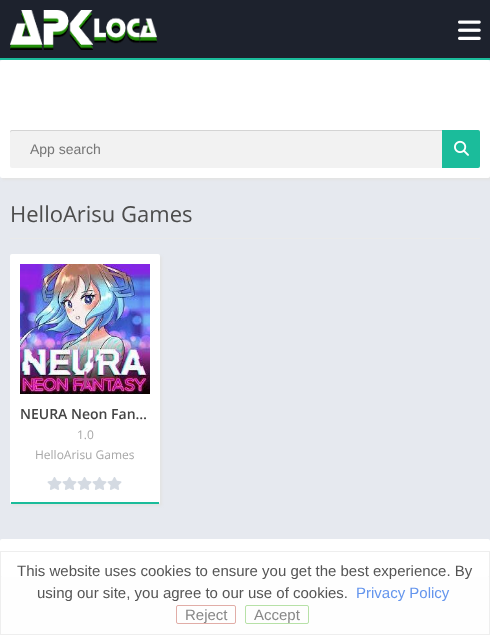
<!DOCTYPE html>
<meta charset="utf-8">
<style>body { margin: 0 } canvas { display: block }</style>
<canvas id="canvas" width="490" height="635"></canvas>
<script type="module">
  const canvas = document.getElementById("canvas");
  const g = canvas.getContext("2d");
  g.miterLimit = 4;
  g.fontKerning = "normal";
  function drawText(s, x, y, [font, color]) {
    g.font = font;
    g.fillStyle = color;
    g.fillText(s, x, y);
  }
  function fillBox(x, y, w, h, color) {
    g.fillStyle = color;
    g.fillRect(x, y, w, h);
  }
  function fillRounded(x, y, w, h, r, color) {
    g.fillStyle = color;
    g.beginPath();
    g.roundRect(x, y, w, h, r);
    g.fill();
  }
  async function drawPicture(src, x, y, w, h) {
    const img = new Image();
    img.src = src;
    await img.decode();
    g.drawImage(img, x, y, w, h);
  }

  const s1 = ["14px Liberation Sans", "#757575"];
  const s2 = ["22px Open Sans", "#4C4C4C"];
  const s3 = ["33px Open Sans", "#A74B84"];
  const s4 = ["600 14px Open Sans", "#444444"];
  const s5 = ["12px Open Sans", "#A7A7A7"];
  const s6 = ["15px Liberation Sans", "#555555"];
  const s7 = ["15px Liberation Sans", "#6495ED"];
  const s8 = ["15px Liberation Sans", "#888888"];

  fillBox(0, 0, 490, 635, "#E6E9EF");
  fillBox(0, 0, 490, 58, "#1D222D");
  g.fillStyle = "#E3E3E3";
  g.filter = "blur(1px)";
  g.beginPath();
  g.roundRect(2, 62, 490, 118, 2);
  g.fill();
  g.filter = "none";
  fillBox(0, 58, 490, 2, "#1BBC9B");
  await drawPicture("pic1.png", 10, 10, 147, 40);
  await drawPicture("pic2.png", 458, 20, 23, 20);
  fillRounded(0, 60, 490, 118, 2, "#FFFFFF");
  fillRounded(10, 130, 470, 38, 2, "#F2F2F2");
  g.fillStyle = "#D4D4D4";
  g.beginPath();
  g.moveTo(12, 131);
  g.lineTo(478, 131);
  g.bezierCurveTo(479, 131, 480, 132, 480, 133);
  g.lineTo(480, 131);
  g.lineTo(478, 130);
  g.lineTo(12, 130);
  g.bezierCurveTo(10, 130, 10, 132, 10, 133);
  g.bezierCurveTo(10, 132, 11, 131, 12, 131);
  g.closePath();
  g.fill();
  drawText("App search", 30, 154, s1);
  g.fillStyle = "#1BBC9B";
  g.beginPath();
  g.roundRect(442, 130, 38, 38, [0, 2, 2, 0]);
  g.fill();
  await drawPicture("pic3.png", 454, 140, 15, 16);
  fillBox(10, 238, 470, 1, "#EAEAEA");
  drawText("HelloArisu Games", 10, 222, s2);
  g.fillStyle = "#E3E3E3";
  g.filter = "blur(1px)";
  g.beginPath();
  g.roundRect(12, 256, 150, 250, 2);
  g.fill();
  g.filter = "none";
  fillRounded(10, 254, 150, 250, 2, "#FFFFFF");
  fillBox(11, 502, 148, 2, "#1BBC9B");
  await drawPicture("pic4.png", 20, 264, 130, 130);
  drawText("+", 76, 391, s3);
  drawText("NEURA Neon Fan…", 20, 419, s4);
  drawText("1.0", 77, 439, s5);
  drawText("HelloArisu Games", 35, 459, s5);
  await drawPicture("pic5.png", 47, 477, 75, 13);
  g.fillStyle = "#E3E3E3";
  g.filter = "blur(1px)";
  g.beginPath();
  g.roundRect(2, 541, 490, 38, 2);
  g.fill();
  g.filter = "none";
  fillRounded(0, 539, 490, 38, 2, "#FFFFFF");
  fillBox(1, 577, 488, 57, "#FEFEFE");
  g.strokeStyle = "#EEEEEE";
  g.strokeRect(0.5, 551.5, 489, 83);
  drawText("This website uses cookies to ensure you get the best experience. By", 17, 576, s6);
  drawText("using our site, you agree to our use of cookies.", 37, 598, s6);
  drawText("Privacy Policy", 356, 598, s7);
  g.beginPath();
  g.roundRect(176.5, 605.5, 59, 18, 1.5);
  g.strokeStyle = "#E1ADA7";
  g.stroke();
  drawText("Reject", 185, 620, s8);
  g.beginPath();
  g.roundRect(245.5, 605.5, 63, 18, 1.5);
  g.strokeStyle = "#B7E1A7";
  g.stroke();
  drawText("Accept", 254, 620, s8);
</script>
